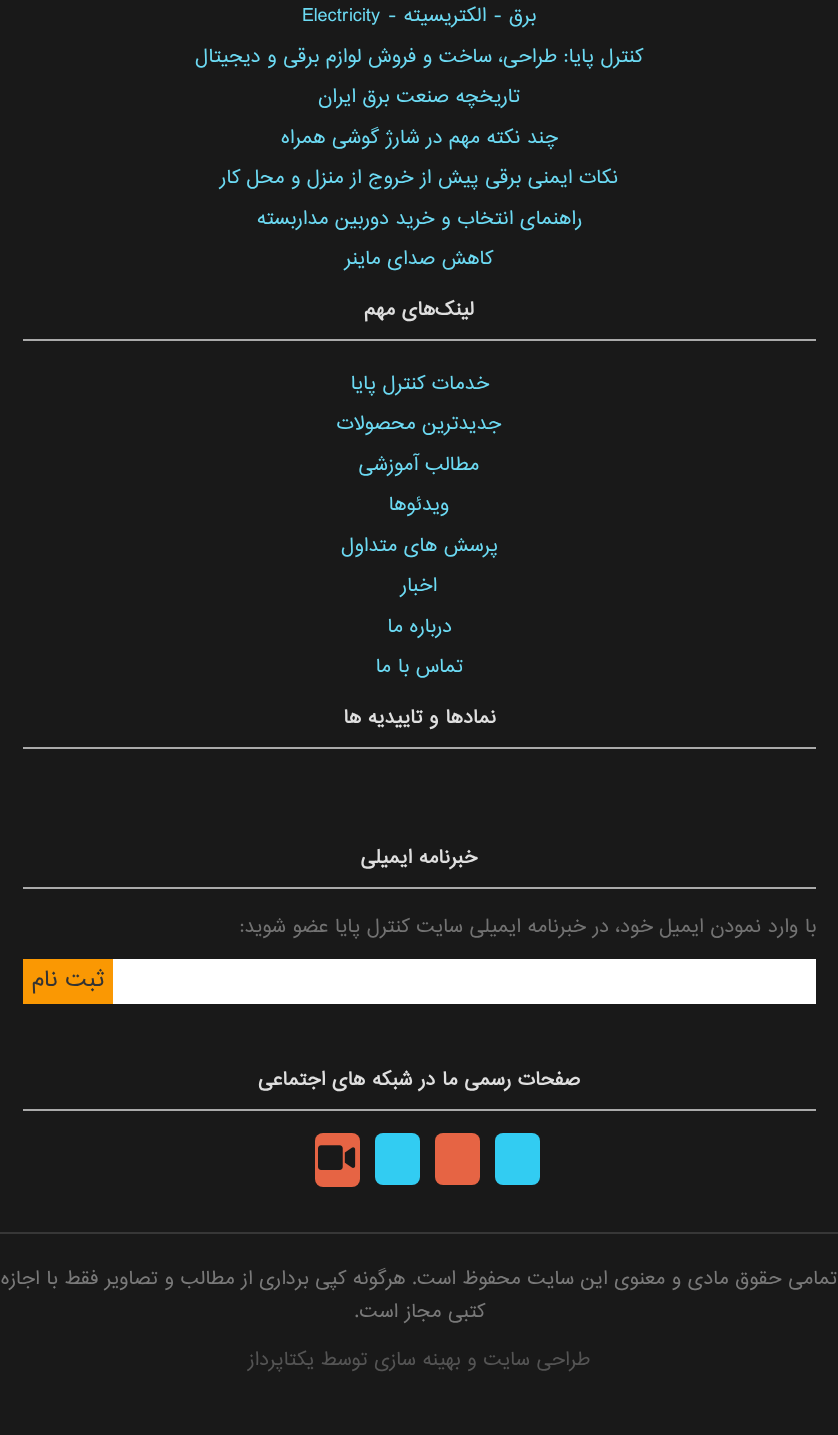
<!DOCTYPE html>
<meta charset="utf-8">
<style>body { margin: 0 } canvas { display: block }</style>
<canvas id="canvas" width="838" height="1435"></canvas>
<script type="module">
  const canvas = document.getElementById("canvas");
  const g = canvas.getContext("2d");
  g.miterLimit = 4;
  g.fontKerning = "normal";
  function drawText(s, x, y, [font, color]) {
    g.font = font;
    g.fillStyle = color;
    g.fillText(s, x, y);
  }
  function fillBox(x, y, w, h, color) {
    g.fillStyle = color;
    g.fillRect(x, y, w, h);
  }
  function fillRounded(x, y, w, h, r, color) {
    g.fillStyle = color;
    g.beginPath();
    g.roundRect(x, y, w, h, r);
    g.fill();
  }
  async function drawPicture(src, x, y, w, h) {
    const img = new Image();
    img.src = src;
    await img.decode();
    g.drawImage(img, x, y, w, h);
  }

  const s1 = ["18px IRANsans", "#6CDAF3"];
  const s2 = ["bold 18px IRANsans", "#DFDFDF"];
  const s3 = ["18px IRANsans", "#727272"];
  const s4 = ["21px IRANsans", "#333333"];
  const s5 = ["18px IRANsans", "#797979"];
  const s6 = ["18px IRANsans", "#545454"];

  fillBox(0, 0, 838, 1435, "#191919");
  g.direction = "rtl";
  drawText("برق - الکتریسیته -", 536, 21, s1);
  g.direction = "ltr";
  drawText("Electricity", 302, 21, s1);
  g.direction = "rtl";
  drawText("کنترل پایا: طراحی، ساخت و فروش لوازم برقی و دیجیتال", 643, 62, s1);
  drawText("تاریخچه صنعت برق ایران", 520, 102, s1);
  drawText("چند نکته مهم در شارژ گوشی همراه", 558, 143, s1);
  drawText("نکات ایمنی برقی پیش از خروج از منزل و محل کار", 618, 183, s1);
  drawText("راهنمای انتخاب و خرید دوربین مداربسته", 582, 224, s1);
  drawText("کاهش صدای ماینر", 493, 264, s1);
  fillBox(23, 339, 793, 2, "#AAAAAA");
  drawText("لینک‌های مهم", 474, 315, s2);
  drawText("خدمات کنترل پایا", 489, 389, s1);
  drawText("جدیدترین محصولات", 501, 429, s1);
  drawText("مطالب آموزشی", 479, 470, s1);
  drawText("ویدئوها", 449, 510, s1);
  drawText("پرسش های متداول", 498, 551, s1);
  drawText("اخبار", 437, 591, s1);
  drawText("درباره ما", 452, 632, s1);
  drawText("تماس با ما", 463, 672, s1);
  fillBox(23, 747, 793, 2, "#AAAAAA");
  drawText("نمادها و تاییدیه ها", 496, 723, s2);
  fillBox(23, 887, 793, 2, "#AAAAAA");
  drawText("خبرنامه ایمیلی", 477, 863, s2);
  drawText("با وارد نمودن ایمیل خود، در خبرنامه ایمیلی سایت کنترل پایا عضو شوید:", 816, 932, s3);
  fillBox(113, 959, 703, 45, "#FFFFFF");
  fillBox(23, 959, 90, 45, "#FA9803");
  drawText("ثبت نام", 104, 986, s4);
  fillBox(23, 1109, 793, 2, "#AAAAAA");
  drawText("صفحات رسمی ما در شبکه های اجتماعی", 580, 1085, s2);
  fillRounded(495, 1133, 45, 52, 8, "#32CCF2");
  fillRounded(435, 1133, 45, 52, 8, "#E66444");
  fillRounded(375, 1133, 45, 52, 8, "#32CCF2");
  fillRounded(315, 1133, 45, 54, 8, "#E66444");
  await drawPicture("pic1.png", 318, 1145, 38, 25);
  fillBox(0, 1232, 838, 2, "#373737");
  drawText("تمامی حقوق مادی و معنوی این سایت محفوظ است. هرگونه کپی برداری از مطالب و تصاویر فقط با اجازه", 837, 1284, s5);
  drawText("کتبی مجاز است.", 485, 1317, s5);
  drawText("طراحی سایت و بهینه سازی توسط یکتاپرداز", 590, 1365, s6);
</script>
